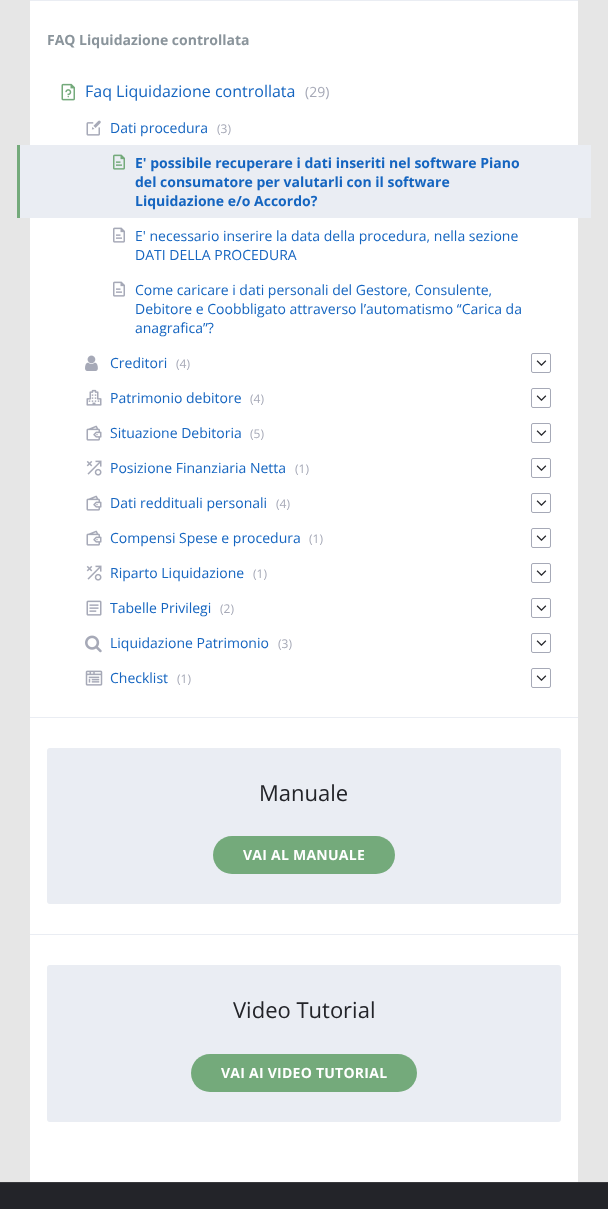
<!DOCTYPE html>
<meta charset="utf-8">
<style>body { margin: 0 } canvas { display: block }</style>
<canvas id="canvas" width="608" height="1209"></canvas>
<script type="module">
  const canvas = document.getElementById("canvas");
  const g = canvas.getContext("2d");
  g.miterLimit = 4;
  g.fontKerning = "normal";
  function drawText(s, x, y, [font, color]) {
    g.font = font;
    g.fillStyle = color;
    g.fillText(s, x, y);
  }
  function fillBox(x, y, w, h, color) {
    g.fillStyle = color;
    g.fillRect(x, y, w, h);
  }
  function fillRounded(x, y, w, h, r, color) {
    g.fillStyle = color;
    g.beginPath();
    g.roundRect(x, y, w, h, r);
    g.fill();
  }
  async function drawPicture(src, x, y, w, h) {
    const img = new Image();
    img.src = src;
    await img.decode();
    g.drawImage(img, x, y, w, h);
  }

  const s1 = ["bold 14px Open Sans", "#8A949B"];
  const s2 = ["16px Open Sans", "#1565C0"];
  const s3 = ["14px Open Sans", "#A6A9B7"];
  const s4 = ["14px Open Sans", "#1565C0"];
  const s5 = ["12px Open Sans", "#A6A9B7"];
  const s6 = ["bold 14px Open Sans", "#1565C0"];
  const s7 = ["22px Open Sans", "#232429"];
  const s8 = ["bold 14px Open Sans", "#FFFFFF"];

  fillBox(0, 0, 608, 1209, "#E6E6E6");
  fillBox(30, 1, 548, 1181, "#FFFFFF");
  fillBox(30, 0, 548, 1, "#EAEDF3");
  drawText("FAQ Liquidazione controllata", 47, 45, s1);
  await drawPicture("pic1.png", 61, 83, 14, 18);
  drawText("Faq Liquidazione controllata", 85, 97, s2);
  drawText("(29)", 305, 97, s3);
  await drawPicture("pic2.png", 86, 120, 15, 16);
  drawText("Dati procedura", 110, 133, s4);
  drawText("(3)", 217, 133, s5);
  fillBox(20, 145, 571, 73, "#EAEDF3");
  fillBox(17, 145, 3, 73, "#74AA7B");
  await drawPicture("pic3.png", 113, 154, 12, 16);
  drawText("E' possibile recuperare i dati inseriti nel software Piano", 135, 168, s6);
  drawText("del consumatore per valutarli con il software", 135, 187, s6);
  drawText("Liquidazione e/o Accordo?", 135, 206, s6);
  await drawPicture("pic4.png", 113, 227, 12, 16);
  drawText("E' necessario inserire la data della procedura, nella sezione", 135, 241, s4);
  drawText("DATI DELLA PROCEDURA", 135, 260, s4);
  await drawPicture("pic4.png", 113, 281, 12, 16);
  drawText("Come caricare i dati personali del Gestore, Consulente,", 135, 295, s4);
  drawText("Debitore e Coobbligato attraverso l’automatismo “Carica da", 135, 314, s4);
  drawText("anagrafica”?", 135, 333, s4);
  await drawPicture("pic5.png", 85, 355, 13, 16);
  drawText("Creditori", 110, 368, s4);
  drawText("(4)", 176, 368, s5);
  g.beginPath();
  g.roundRect(531.5, 353.5, 19, 19, 1.5);
  g.strokeStyle = "#A6A9B7";
  g.stroke();
  await drawPicture("pic6.png", 536, 360, 11, 6);
  await drawPicture("pic7.png", 86, 389, 16, 17);
  drawText("Patrimonio debitore", 110, 403, s4);
  drawText("(4)", 250, 403, s5);
  g.beginPath();
  g.roundRect(531.5, 388.5, 19, 19, 1.5);
  g.stroke();
  await drawPicture("pic6.png", 536, 395, 11, 6);
  await drawPicture("pic8.png", 86, 425, 16, 16);
  drawText("Situazione Debitoria", 110, 438, s4);
  drawText("(5)", 250, 438, s5);
  g.beginPath();
  g.roundRect(531.5, 423.5, 19, 19, 1.5);
  g.stroke();
  await drawPicture("pic6.png", 536, 430, 11, 6);
  await drawPicture("pic9.png", 86, 460, 16, 16);
  drawText("Posizione Finanziaria Netta", 110, 473, s4);
  drawText("(1)", 295, 473, s5);
  g.beginPath();
  g.roundRect(531.5, 458.5, 19, 19, 1.5);
  g.stroke();
  await drawPicture("pic6.png", 536, 465, 11, 6);
  await drawPicture("pic8.png", 86, 495, 16, 16);
  drawText("Dati reddituali personali", 110, 508, s4);
  drawText("(4)", 276, 508, s5);
  g.beginPath();
  g.roundRect(531.5, 493.5, 19, 19, 1.5);
  g.stroke();
  await drawPicture("pic6.png", 536, 500, 11, 6);
  await drawPicture("pic8.png", 86, 530, 16, 16);
  drawText("Compensi Spese e procedura", 110, 543, s4);
  drawText("(1)", 309, 543, s5);
  g.beginPath();
  g.roundRect(531.5, 528.5, 19, 19, 1.5);
  g.stroke();
  await drawPicture("pic6.png", 536, 535, 11, 6);
  await drawPicture("pic9.png", 86, 565, 16, 16);
  drawText("Riparto Liquidazione", 110, 578, s4);
  drawText("(1)", 253, 578, s5);
  g.beginPath();
  g.roundRect(531.5, 563.5, 19, 19, 1.5);
  g.stroke();
  await drawPicture("pic6.png", 536, 570, 11, 6);
  await drawPicture("pic10.png", 86, 600, 16, 16);
  drawText("Tabelle Privilegi", 110, 613, s4);
  drawText("(2)", 220, 613, s5);
  g.beginPath();
  g.roundRect(531.5, 598.5, 19, 19, 1.5);
  g.stroke();
  await drawPicture("pic6.png", 536, 605, 11, 6);
  await drawPicture("pic11.png", 85, 635, 17, 18);
  drawText("Liquidazione Patrimonio", 110, 648, s4);
  drawText("(3)", 278, 648, s5);
  g.beginPath();
  g.roundRect(531.5, 633.5, 19, 19, 1.5);
  g.stroke();
  await drawPicture("pic6.png", 536, 640, 11, 6);
  await drawPicture("pic12.png", 85, 670, 18, 16);
  drawText("Checklist", 110, 683, s4);
  drawText("(1)", 177, 683, s5);
  g.beginPath();
  g.roundRect(531.5, 668.5, 19, 19, 1.5);
  g.stroke();
  await drawPicture("pic6.png", 536, 675, 11, 6);
  fillBox(30, 717, 548, 1, "#EAEDF3");
  fillRounded(47, 748, 514, 156, 3, "#EAEDF3");
  drawText("Manuale", 259, 801, s7);
  fillRounded(213, 836, 182, 38, 19, "#74AA7B");
  g.letterSpacing = "0.25px";
  drawText("VAI AL MANUALE", 243, 860, s8);
  fillBox(30, 934, 548, 1, "#EAEDF3");
  fillRounded(47, 965, 514, 157, 3, "#EAEDF3");
  g.letterSpacing = "0px";
  drawText("Video Tutorial", 233, 1018, s7);
  fillRounded(191, 1054, 226, 38, 19, "#74AA7B");
  g.letterSpacing = "0.25px";
  drawText("VAI AI VIDEO TUTORIAL", 221, 1078, s8);
  fillBox(0, 1183, 608, 26, "#232429");
  fillBox(0, 1182, 608, 1, "#393A3E");
</script>
